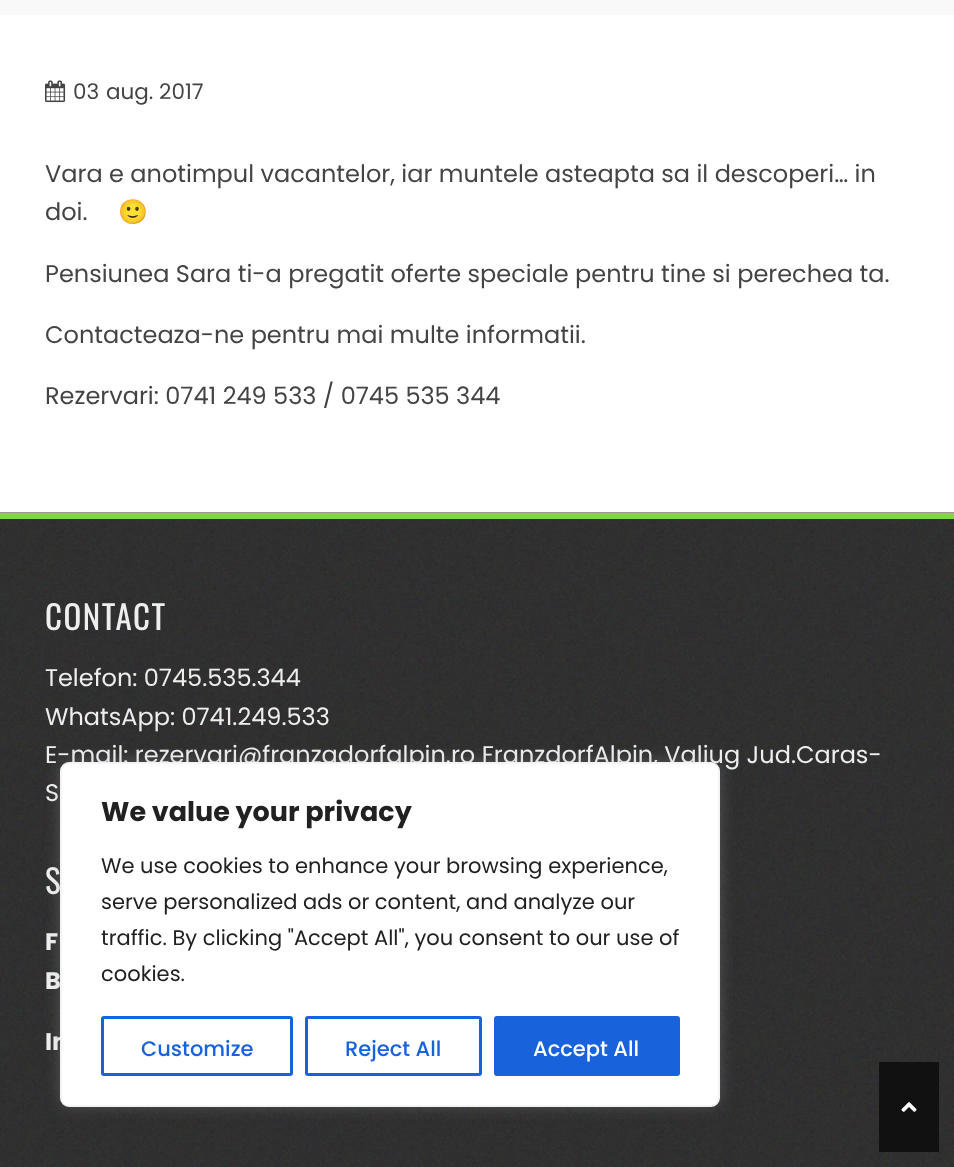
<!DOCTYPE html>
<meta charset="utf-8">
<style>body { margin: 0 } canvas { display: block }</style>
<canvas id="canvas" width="954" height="1167"></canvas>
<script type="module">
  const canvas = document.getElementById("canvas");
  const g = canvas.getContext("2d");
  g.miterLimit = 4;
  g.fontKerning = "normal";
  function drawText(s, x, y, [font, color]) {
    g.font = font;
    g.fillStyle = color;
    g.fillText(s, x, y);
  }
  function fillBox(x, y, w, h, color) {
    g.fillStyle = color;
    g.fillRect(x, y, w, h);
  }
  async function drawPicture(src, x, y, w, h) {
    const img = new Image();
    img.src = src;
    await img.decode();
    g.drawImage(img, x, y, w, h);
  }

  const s1 = ["21.5px Poppins", "#444444"];
  const s2 = ["24px Poppins", "#444444"];
  const s3 = ["24px Noto Color Emoji", "#444444"];
  const s4 = ["33px Oswald", "#EEEEEE"];
  const s5 = ["24px Poppins", "#EEEEEE"];
  const s6 = ["bold 24px Poppins", "#EEEEEE"];
  const s7 = ["bold 27px Poppins", "#212121"];
  const s8 = ["21px Poppins", "#212121"];
  const s9 = ["500 21px Poppins", "#1863DC"];
  const s10 = ["500 21px Poppins", "#FFFFFF"];

  fillBox(0, 0, 954, 1167, "#FFFFFF");
  fillBox(0, 0, 954, 15, "#F9F9F9");
  await drawPicture("pic1.png", 45, 80, 21, 23);
  drawText("03", 73, 99, s1);
  drawText("aug. 2017", 106, 99, s1);
  drawText("Vara e anotimpul vacantelor, iar muntele asteapta sa il descoperi… in", 45, 182, s2);
  drawText("doi.", 45, 220, s2);
  drawText("🙂", 118, 220, s3);
  drawText("Pensiunea Sara ti-a pregatit oferte speciale pentru tine si perechea ta.", 45, 282, s2);
  drawText("Contacteaza-ne pentru mai multe informatii.", 45, 343, s2);
  drawText("Rezervari: 0741 249 533 / 0745 535 344", 45, 404, s2);
  await drawPicture("pic2.png", 0, 512, 954, 655);
  fillBox(0, 513, 954, 6, "#81D742");
  g.letterSpacing = "1.5px";
  drawText("CONTACT", 45, 630, s4);
  g.letterSpacing = "0px";
  drawText("Telefon: 0745.535.344", 45, 686, s5);
  drawText("WhatsApp: 0741.249.533", 45, 725, s5);
  drawText("E-mail: rezervari@franzadorfalpin.ro FranzdorfAlpin, Valiug Jud.Caras-", 45, 763, s5);
  drawText("S", 45, 801, s5);
  g.letterSpacing = "1.5px";
  drawText("S", 45, 894, s4);
  g.letterSpacing = "0px";
  drawText("F", 45, 950, s6);
  drawText("B", 45, 989, s6);
  drawText("In", 45, 1050, s6);
  g.fillStyle = "rgba(172, 171, 171, 0.3)";
  g.filter = "blur(7.5px)";
  g.beginPath();
  g.roundRect(60, 761, 660, 345, 9);
  g.fill();
  g.filter = "none";
  g.fillStyle = "#FFFFFF";
  g.beginPath();
  g.roundRect(61, 763, 658, 343, 8);
  g.fill();
  g.strokeStyle = "#F4F4F4";
  g.lineWidth = 2;
  g.stroke();
  drawText("We value your privacy", 101, 821, s7);
  drawText("We use cookies to enhance your browsing experience,", 101, 873, s8);
  drawText("serve personalized ads or content, and analyze our", 101, 909, s8);
  drawText("traffic. By clicking \"Accept All\", you consent to our use of", 101, 945, s8);
  drawText("cookies.", 101, 981, s8);
  g.beginPath();
  g.roundRect(102.5, 1017.5, 189, 57, 1.5);
  g.strokeStyle = "#1863DC";
  g.lineWidth = 3;
  g.stroke();
  drawText("Customize", 141, 1056, s9);
  g.beginPath();
  g.roundRect(306.5, 1017.5, 174, 57, 1.5);
  g.stroke();
  drawText("Reject All", 345, 1056, s9);
  g.beginPath();
  g.roundRect(495.5, 1017.5, 183, 57, 1.5);
  g.fill();
  g.stroke();
  drawText("Accept All", 533, 1056, s10);
  fillBox(879, 1062, 60, 90, "#111111");
  await drawPicture("pic3.png", 901, 1102, 16, 10);
</script>
